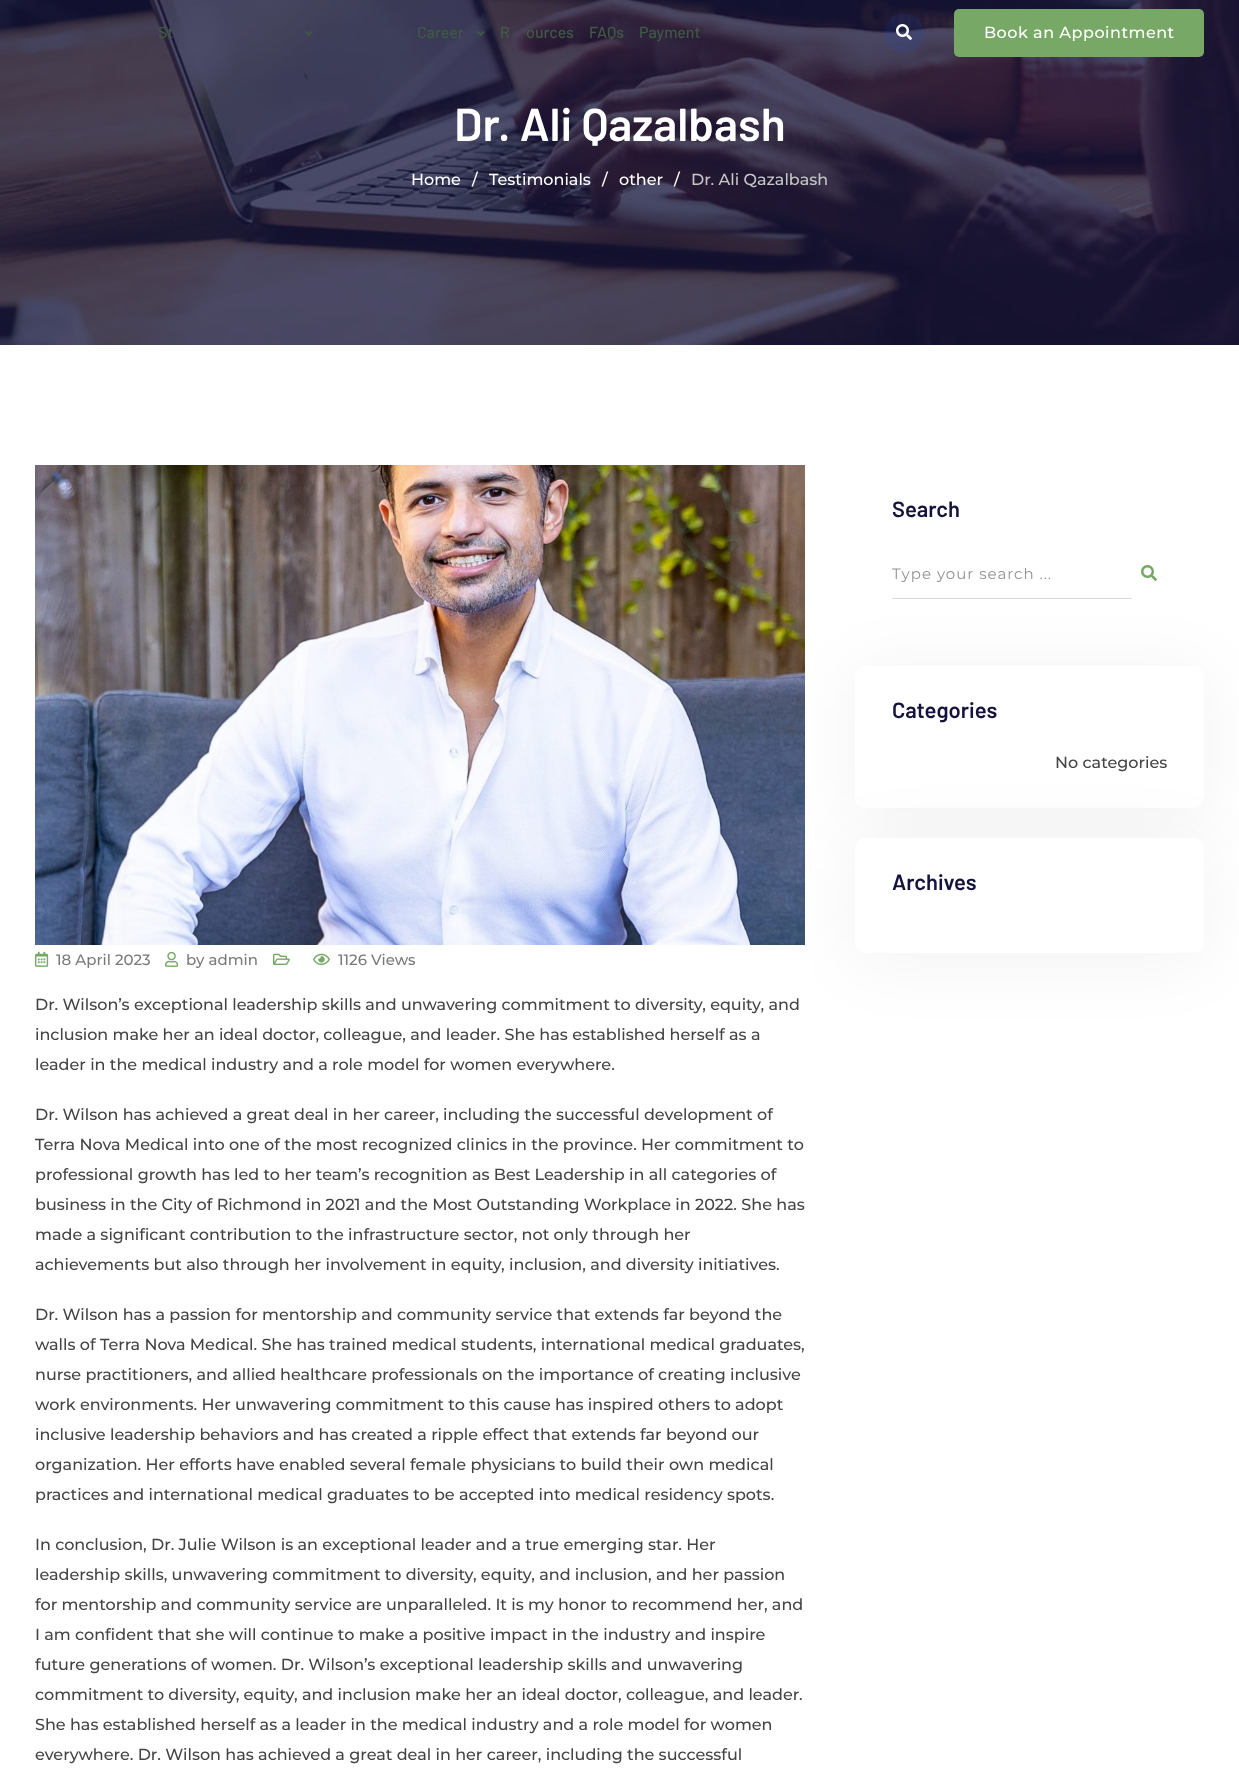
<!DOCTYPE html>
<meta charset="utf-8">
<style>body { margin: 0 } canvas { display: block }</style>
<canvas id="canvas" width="1239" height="1770"></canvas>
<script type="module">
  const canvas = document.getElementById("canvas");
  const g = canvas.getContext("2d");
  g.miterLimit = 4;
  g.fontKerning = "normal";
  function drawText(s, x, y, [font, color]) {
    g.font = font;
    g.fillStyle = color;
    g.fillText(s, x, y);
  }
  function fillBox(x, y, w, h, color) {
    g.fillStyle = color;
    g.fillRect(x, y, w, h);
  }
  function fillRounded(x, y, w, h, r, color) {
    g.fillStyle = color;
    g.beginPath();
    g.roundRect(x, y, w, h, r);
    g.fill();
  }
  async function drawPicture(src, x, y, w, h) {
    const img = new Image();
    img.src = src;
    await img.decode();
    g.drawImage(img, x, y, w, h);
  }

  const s1 = ["500 16px Barlow", "#3F5A43"];
  const s2 = ["500 16px Montserrat", "#FFFFFF"];
  const s3 = ["600 46px Barlow", "#FFFFFF"];
  const s4 = ["500 16px Montserrat", "#C7C7C7"];
  const s5 = ["600 22px Barlow", "#14133B"];
  const s6 = ["15px Montserrat", "#939396"];
  const s7 = ["500 16px Montserrat", "#444444"];
  const s8 = ["500 15px Montserrat", "#7A7A7A"];

  fillBox(0, 0, 1239, 1770, "#FFFFFF");
  await drawPicture("pic4.png", 0, 0, 1239, 345);
  drawText("St", 158, 38, s1);
  await drawPicture("pic1.png", 305, 31, 8, 5);
  drawText("Career", 417, 38, s1);
  await drawPicture("pic2.png", 477, 31, 8, 5);
  drawText("R", 500, 38, s1);
  drawText("ources", 526, 38, s1);
  drawText("FAQs", 589, 38, s1);
  drawText("Payment", 639, 38, s1);
  g.fillStyle = "rgba(5, 84, 242, 0.1)";
  g.beginPath();
  g.arc(904, 33, 20, 0, Math.PI * 2);
  g.fill();
  await drawPicture("pic3.png", 896, 24, 16, 16);
  fillRounded(954, 9, 250, 48, 5, "#77A866");
  g.letterSpacing = "0.5px";
  drawText("Book an Appointment", 984, 38, s2);
  g.letterSpacing = "0px";
  drawText("Dr. Ali Qazalbash", 454, 141, s3);
  drawText("Home", 411, 185, s2);
  drawText("/", 472, 185, s2);
  drawText("Testimonials", 489, 185, s2);
  drawText("/", 602, 185, s2);
  drawText("other", 619, 185, s2);
  drawText("/", 674, 185, s2);
  drawText("Dr. Ali Qazalbash", 691, 185, s4);
  drawText("Search", 892, 517, s5);
  fillBox(892, 598, 240, 1, "#D9D9D9");
  g.letterSpacing = "1px";
  drawText("Type your search ...", 892, 579, s6);
  await drawPicture("pic6.png", 35, 465, 770, 480);
  g.fillStyle = "rgba(0, 0, 0, 0.05)";
  g.filter = "blur(35px)";
  g.beginPath();
  g.roundRect(855, 673, 349, 142, 10);
  g.fill();
  g.filter = "none";
  await drawPicture("pic5.png", 1141, 565, 16, 16);
  fillRounded(855, 666, 349, 142, 10, "#FFFFFF");
  g.letterSpacing = "0px";
  drawText("Categories", 892, 718, s5);
  drawText("No categories", 1055, 768, s7);
  g.fillStyle = "rgba(0, 0, 0, 0.05)";
  g.filter = "blur(35px)";
  g.beginPath();
  g.roundRect(855, 845, 349, 115, 10);
  g.fill();
  g.filter = "none";
  fillRounded(855, 838, 349, 115, 10, "#FFFFFF");
  drawText("Archives", 892, 890, s5);
  await drawPicture("pic7.png", 35, 951, 14, 16);
  drawText("18 April 2023", 56, 965, s8);
  await drawPicture("pic8.png", 165, 951, 14, 16);
  drawText("by admin", 186, 965, s8);
  await drawPicture("pic9.png", 273, 953, 17, 12);
  await drawPicture("pic10.png", 313, 953, 17, 12);
  drawText("1126 Views", 338, 965, s8);
  drawText("Dr. Wilson’s exceptional leadership skills and unwavering commitment to diversity, equity, and", 35, 1010, s7);
  drawText("inclusion make her an ideal doctor, colleague, and leader. She has established herself as a", 35, 1040, s7);
  drawText("leader in the medical industry and a role model for women everywhere.", 35, 1070, s7);
  drawText("Dr. Wilson has achieved a great deal in her career, including the successful development of", 35, 1120, s7);
  drawText("Terra Nova Medical into one of the most recognized clinics in the province. Her commitment to", 35, 1150, s7);
  drawText("professional growth has led to her team’s recognition as Best Leadership in all categories of", 35, 1180, s7);
  drawText("business in the City of Richmond in 2021 and the Most Outstanding Workplace in 2022. She has", 35, 1210, s7);
  drawText("made a significant contribution to the infrastructure sector, not only through her", 35, 1240, s7);
  drawText("achievements but also through her involvement in equity, inclusion, and diversity initiatives.", 35, 1270, s7);
  drawText("Dr. Wilson has a passion for mentorship and community service that extends far beyond the", 35, 1320, s7);
  drawText("walls of Terra Nova Medical. She has trained medical students, international medical graduates,", 35, 1350, s7);
  drawText("nurse practitioners, and allied healthcare professionals on the importance of creating inclusive", 35, 1380, s7);
  drawText("work environments. Her unwavering commitment to this cause has inspired others to adopt", 35, 1410, s7);
  drawText("inclusive leadership behaviors and has created a ripple effect that extends far beyond our", 35, 1440, s7);
  drawText("organization. Her efforts have enabled several female physicians to build their own medical", 35, 1470, s7);
  drawText("practices and international medical graduates to be accepted into medical residency spots.", 35, 1500, s7);
  drawText("In conclusion, Dr. Julie Wilson is an exceptional leader and a true emerging star. Her", 35, 1550, s7);
  drawText("leadership skills, unwavering commitment to diversity, equity, and inclusion, and her passion", 35, 1580, s7);
  drawText("for mentorship and community service are unparalleled. It is my honor to recommend her, and", 35, 1610, s7);
  drawText("I am confident that she will continue to make a positive impact in the industry and inspire", 35, 1640, s7);
  drawText("future generations of women. Dr. Wilson’s exceptional leadership skills and unwavering", 35, 1670, s7);
  drawText("commitment to diversity, equity, and inclusion make her an ideal doctor, colleague, and leader.", 35, 1700, s7);
  drawText("She has established herself as a leader in the medical industry and a role model for women", 35, 1730, s7);
  drawText("everywhere. Dr. Wilson has achieved a great deal in her career, including the successful", 35, 1760, s7);
</script>
